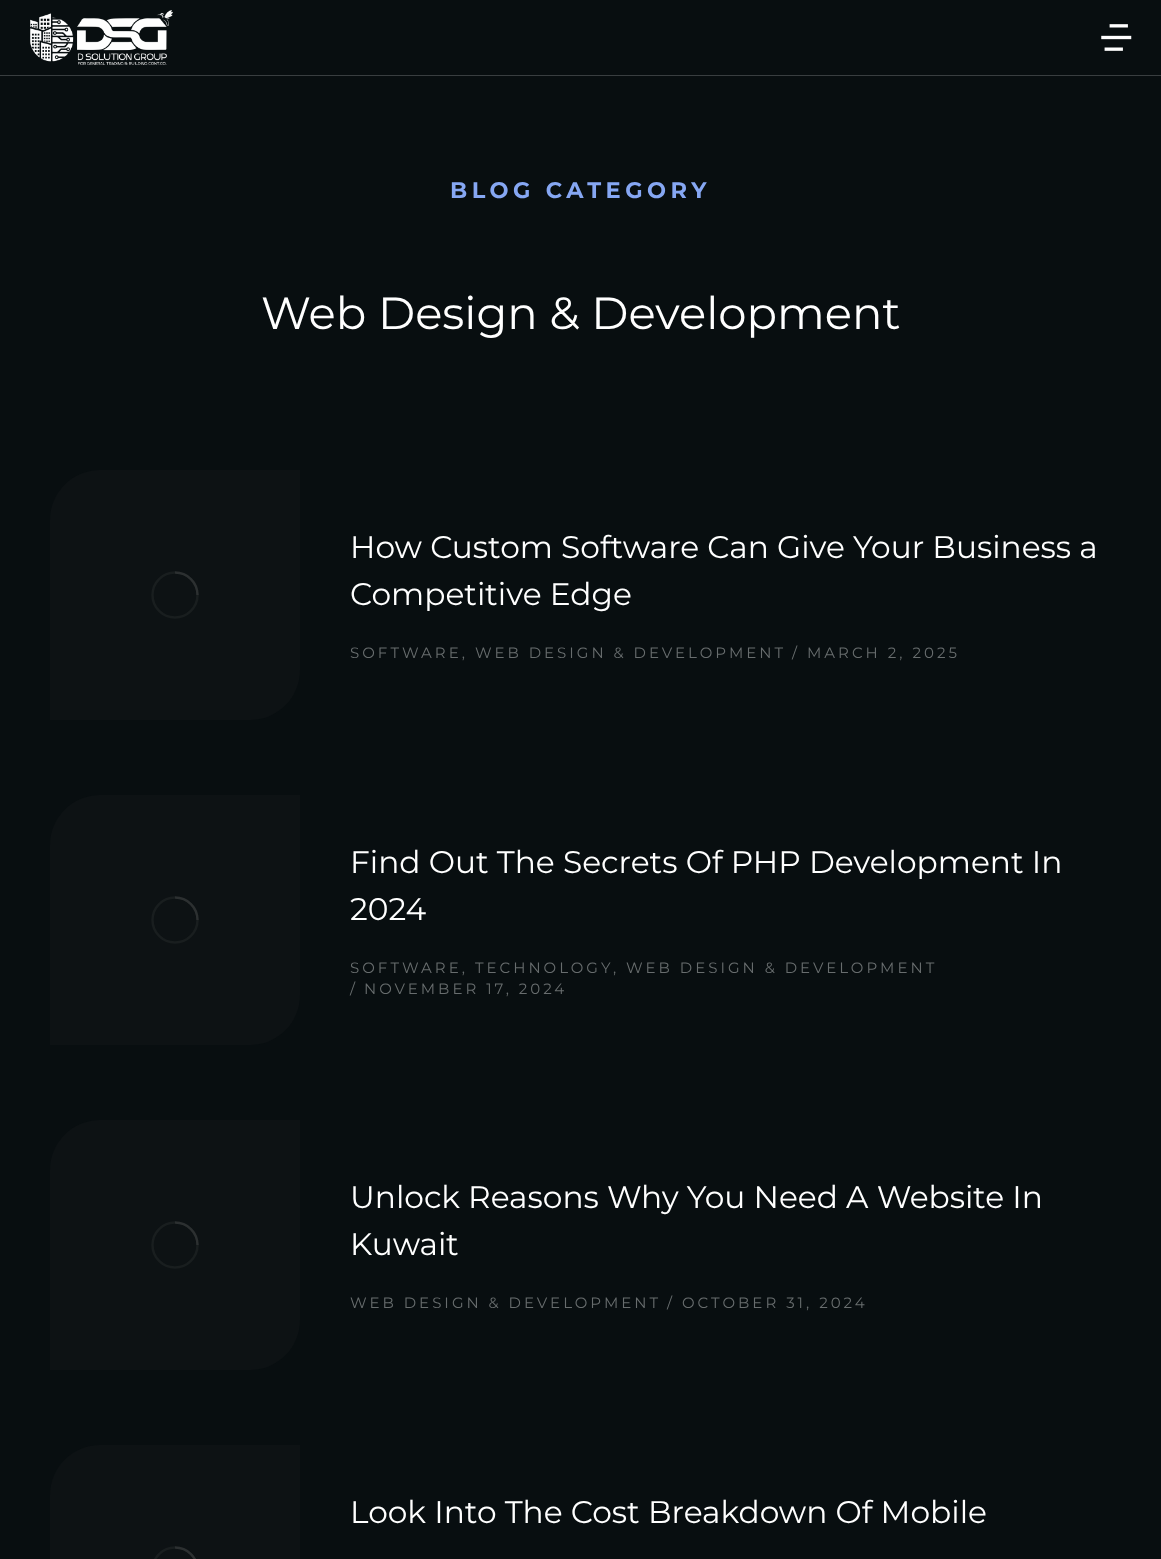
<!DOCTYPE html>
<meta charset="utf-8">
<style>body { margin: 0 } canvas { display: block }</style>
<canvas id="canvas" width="1161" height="1559"></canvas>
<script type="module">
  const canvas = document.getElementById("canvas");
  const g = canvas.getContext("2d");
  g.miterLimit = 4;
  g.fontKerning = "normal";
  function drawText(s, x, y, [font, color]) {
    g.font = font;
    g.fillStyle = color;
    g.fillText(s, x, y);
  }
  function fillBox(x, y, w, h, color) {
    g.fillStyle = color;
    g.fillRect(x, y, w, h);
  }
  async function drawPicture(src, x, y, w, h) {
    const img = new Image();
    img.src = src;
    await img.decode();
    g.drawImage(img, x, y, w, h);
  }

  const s1 = ["bold 22.5px Montserrat", "#86A7F3"];
  const s2 = ["45px Montserrat", "#FFFFFF"];
  const s3 = ["31.25px Montserrat", "#FFFFFF"];
  const s4 = ["15px Montserrat", "#686D6E"];

  fillBox(0, 0, 1161, 1559, "#080E10");
  fillBox(0, 75, 1161, 1, "#393E40");
  await drawPicture("pic1.png", 30, 10, 143, 55);
  await drawPicture("pic2.png", 1101, 24, 31, 27);
  g.letterSpacing = "4.5px";
  drawText("BLOG CATEGORY", 450, 198, s1);
  g.letterSpacing = "0px";
  drawText("Web Design & Development", 261, 329, s2);
  g.fillStyle = "#0D1214";
  g.beginPath();
  g.roundRect(50, 470, 250, 250, [50, 0, 50, 0]);
  g.fill();
  g.beginPath();
  g.arc(175, 595, 22.5, 0, Math.PI * 2);
  g.strokeStyle = "#191E1F";
  g.lineWidth = 2.5;
  g.stroke();
  g.beginPath();
  g.moveTo(197.5, 595);
  g.bezierCurveTo(197.5, 582.5, 187.5, 572.5, 175, 572.5);
  g.strokeStyle = "rgba(102, 102, 102, 0.25)";
  g.stroke();
  drawText("How Custom Software Can Give Your Business a", 350, 558, s3);
  drawText("Competitive Edge", 350, 605, s3);
  g.letterSpacing = "3px";
  drawText("SOFTWARE, WEB DESIGN & DEVELOPMENT", 350, 658, s4);
  drawText("/", 792, 658, s4);
  drawText("MARCH 2, 2025", 807, 658, s4);
  g.fillStyle = "#0D1214";
  g.beginPath();
  g.roundRect(50, 795, 250, 250, [50, 0, 50, 0]);
  g.fill();
  g.beginPath();
  g.arc(175, 920, 22.5, 0, Math.PI * 2);
  g.strokeStyle = "#191E1F";
  g.stroke();
  g.beginPath();
  g.moveTo(197.5, 920);
  g.bezierCurveTo(197.5, 907.5, 187.5, 897.5, 175, 897.5);
  g.strokeStyle = "rgba(102, 102, 102, 0.25)";
  g.stroke();
  g.letterSpacing = "0px";
  drawText("Find Out The Secrets Of PHP Development In", 350, 873, s3);
  drawText("2024", 350, 920, s3);
  g.letterSpacing = "3px";
  drawText("SOFTWARE, TECHNOLOGY", 350, 973, s4);
  drawText(", WEB DESIGN & DEVELOPMENT", 613, 973, s4);
  drawText("/", 350, 994, s4);
  drawText("NOVEMBER 17, 2024", 364, 994, s4);
  g.fillStyle = "#0D1214";
  g.beginPath();
  g.roundRect(50, 1120, 250, 250, [50, 0, 50, 0]);
  g.fill();
  g.beginPath();
  g.arc(175, 1245, 22.5, 0, Math.PI * 2);
  g.strokeStyle = "#191E1F";
  g.stroke();
  g.beginPath();
  g.moveTo(197.5, 1245);
  g.bezierCurveTo(197.5, 1232.5, 187.5, 1222.5, 175, 1222.5);
  g.strokeStyle = "rgba(102, 102, 102, 0.25)";
  g.stroke();
  g.letterSpacing = "0px";
  drawText("Unlock Reasons Why You Need A Website In", 350, 1208, s3);
  drawText("Kuwait", 350, 1255, s3);
  g.letterSpacing = "3px";
  drawText("WEB DESIGN & DEVELOPMENT", 350, 1308, s4);
  drawText("/", 667, 1308, s4);
  drawText("OCTOBER 31, 2024", 682, 1308, s4);
  g.fillStyle = "#0D1214";
  g.beginPath();
  g.moveTo(100, 1445);
  g.lineTo(300, 1445);
  g.lineTo(300, 1559);
  g.bezierCurveTo(300, 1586.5, 277.5, 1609, 250, 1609);
  g.lineTo(50, 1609);
  g.lineTo(50, 1495);
  g.bezierCurveTo(50, 1467.5, 72.5, 1445, 100, 1445);
  g.closePath();
  g.fill();
  g.beginPath();
  g.arc(175, 1570, 22.5, 0, Math.PI * 2);
  g.strokeStyle = "#191E1F";
  g.stroke();
  g.beginPath();
  g.moveTo(197.5, 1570);
  g.bezierCurveTo(197.5, 1557.5, 187.5, 1547.5, 175, 1547.5);
  g.strokeStyle = "rgba(102, 102, 102, 0.25)";
  g.stroke();
  g.letterSpacing = "0px";
  drawText("Look Into The Cost Breakdown Of Mobile", 350, 1523, s3);
</script>
